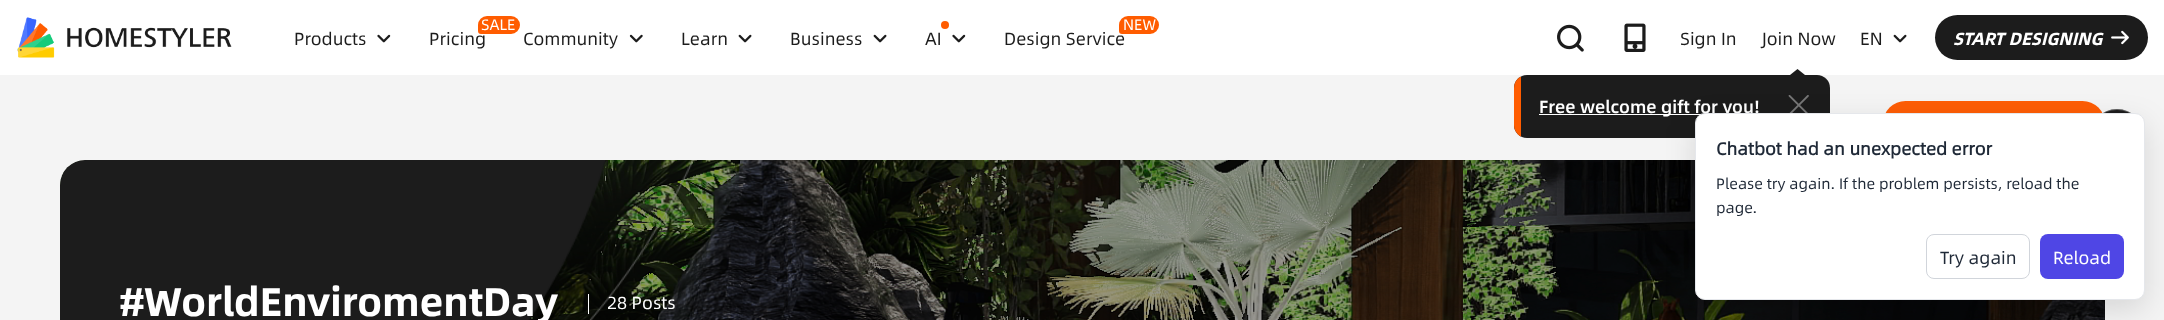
<!DOCTYPE html>
<meta charset="utf-8">
<style>body { margin: 0 } canvas { display: block }</style>
<canvas id="canvas" width="2164" height="320"></canvas>
<script type="module">
  const canvas = document.getElementById("canvas");
  const g = canvas.getContext("2d");
  g.miterLimit = 4;
  g.fontKerning = "normal";
  function drawText(s, x, y, [font, color]) {
    g.font = font;
    g.fillStyle = color;
    g.fillText(s, x, y);
  }
  function fillBox(x, y, w, h, color) {
    g.fillStyle = color;
    g.fillRect(x, y, w, h);
  }
  function fillRounded(x, y, w, h, r, color) {
    g.fillStyle = color;
    g.beginPath();
    g.roundRect(x, y, w, h, r);
    g.fill();
  }
  async function drawPicture(src, x, y, w, h) {
    const img = new Image();
    img.src = src;
    await img.decode();
    g.drawImage(img, x, y, w, h);
  }

  const s1 = ["17.5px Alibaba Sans", "#1C1C1C"];
  const s2 = ["15px Alibaba Sans", "#FFFFFF"];
  const s3 = ["500 17.5px Alibaba Sans", "#FFFFFF"];
  const s4 = ["italic bold 17.5px Alibaba Sans", "#FFFFFF"];
  const s5 = ["bold 40px Alibaba Sans", "#FFFFFF"];
  const s6 = ["17.5px Alibaba Sans", "#FFFFFF"];
  const s7 = ["bold 17.5px 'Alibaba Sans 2'", "#1F2937"];
  const s8 = ["15px Alibaba Sans", "#1F2937"];
  const s9 = ["17.5px Alibaba Sans", "#1F2937"];

  fillBox(0, 0, 2164, 320, "#F4F4F4");
  fillBox(0, 0, 2164, 75, "#FFFFFF");
  await drawPicture("pic1.png", 17, 17, 215, 41);
  drawText("Products", 294, 45, s1);
  await drawPicture("pic2.png", 377, 34, 14, 9);
  drawText("Pricing", 429, 45, s1);
  g.fillStyle = "#FF5C00";
  g.beginPath();
  g.roundRect(478, 16, 42, 18, [9, 9, 9, 3]);
  g.fill();
  drawText("SALE", 481, 30, s2);
  drawText("Community", 523, 45, s1);
  await drawPicture("pic3.png", 629, 34, 14, 9);
  drawText("Learn", 681, 45, s1);
  await drawPicture("pic4.png", 738, 34, 14, 9);
  drawText("Business", 790, 45, s1);
  await drawPicture("pic4.png", 873, 34, 14, 9);
  g.fillStyle = "#FF5C00";
  g.beginPath();
  g.arc(945, 25, 4, 0, Math.PI * 2);
  g.fill();
  drawText("AI", 925, 45, s1);
  await drawPicture("pic2.png", 952, 34, 14, 9);
  drawText("Design Service", 1004, 45, s1);
  g.fillStyle = "#FF5C00";
  g.beginPath();
  g.roundRect(1119, 16, 40, 18, [9, 9, 9, 3]);
  g.fill();
  drawText("NEW", 1123, 30, s2);
  await drawPicture("pic5.png", 1557, 24, 27, 28);
  await drawPicture("pic6.png", 1624, 23, 22, 29);
  drawText("Join Now", 1762, 45, s1);
  g.beginPath();
  g.moveTo(1805, 75);
  g.lineTo(1790, 75);
  g.lineTo(1797.5, 69);
  g.closePath();
  g.fill();
  fillRounded(1514, 75, 316, 63, 13, "#1C1C1C");
  g.save();
  g.beginPath();
  g.roundRect(1514, 75, 316, 63, 13);
  g.clip();
  fillBox(1514, 75, 7, 63, "#FF5C00");
  g.restore();
  fillBox(1539, 114, 162, 1, "#FFFFFF");
  drawText("Free welcome gift for you!", 1539, 113, s3);
  await drawPicture("pic7.png", 1788, 95, 21, 18);
  drawText("Sign In", 1680, 45, s1);
  drawText("EN", 1860, 45, s1);
  await drawPicture("pic4.png", 1893, 34, 14, 9);
  fillRounded(1935, 15, 213, 45, 22.5, "#1C1C1C");
  drawText("START DESIGNING", 1953, 45, s4);
  await drawPicture("pic8.png", 2111, 30, 18, 15);
  fillRounded(1883, 101, 222, 45, 22.5, "#FE5D05");
  await drawPicture("pic9.png", 60, 160, 2045, 160);
  fillRounded(60, 160, 2045, 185, 25, "rgba(0, 0, 0, 0.4)");
  g.fillStyle = "#1C1C1C";
  g.beginPath();
  g.arc(2117, 137, 28, 0, Math.PI * 2);
  g.fill();
  g.beginPath();
  g.arc(2117, 137, 27.5, 0, Math.PI * 2);
  g.strokeStyle = "rgba(255, 255, 255, 0.3)";
  g.stroke();
  await drawPicture("pic10.png", 60, 160, 634, 160);
  drawText("#WorldEnviromentDay", 120, 316, s5);
  fillBox(588, 294, 1, 20, "#FFFFFF");
  drawText("28 Posts", 607, 309, s6);
  g.fillStyle = "rgba(0, 0, 0, 0.12)";
  g.filter = "blur(15px)";
  g.beginPath();
  g.roundRect(1695, 123, 450, 187, 10);
  g.fill();
  g.filter = "none";
  g.fillStyle = "#FFFFFF";
  g.beginPath();
  g.roundRect(1695.5, 113.5, 449, 186, 9.5);
  g.fill();
  g.strokeStyle = "#E5E7EB";
  g.stroke();
  drawText("Chatbot had an unexpected error", 1716, 155, s7);
  drawText("Please try again. If the problem persists, reload the", 1716, 189, s8);
  drawText("page.", 1716, 213, s8);
  g.beginPath();
  g.roundRect(1926.5, 234.5, 103, 44, 7.5);
  g.strokeStyle = "#D1D5DB";
  g.stroke();
  drawText("Try again", 1940, 264, s9);
  fillRounded(2040, 234, 84, 45, 8, "#4F46E5");
  drawText("Reload", 2053, 264, s6);
</script>
